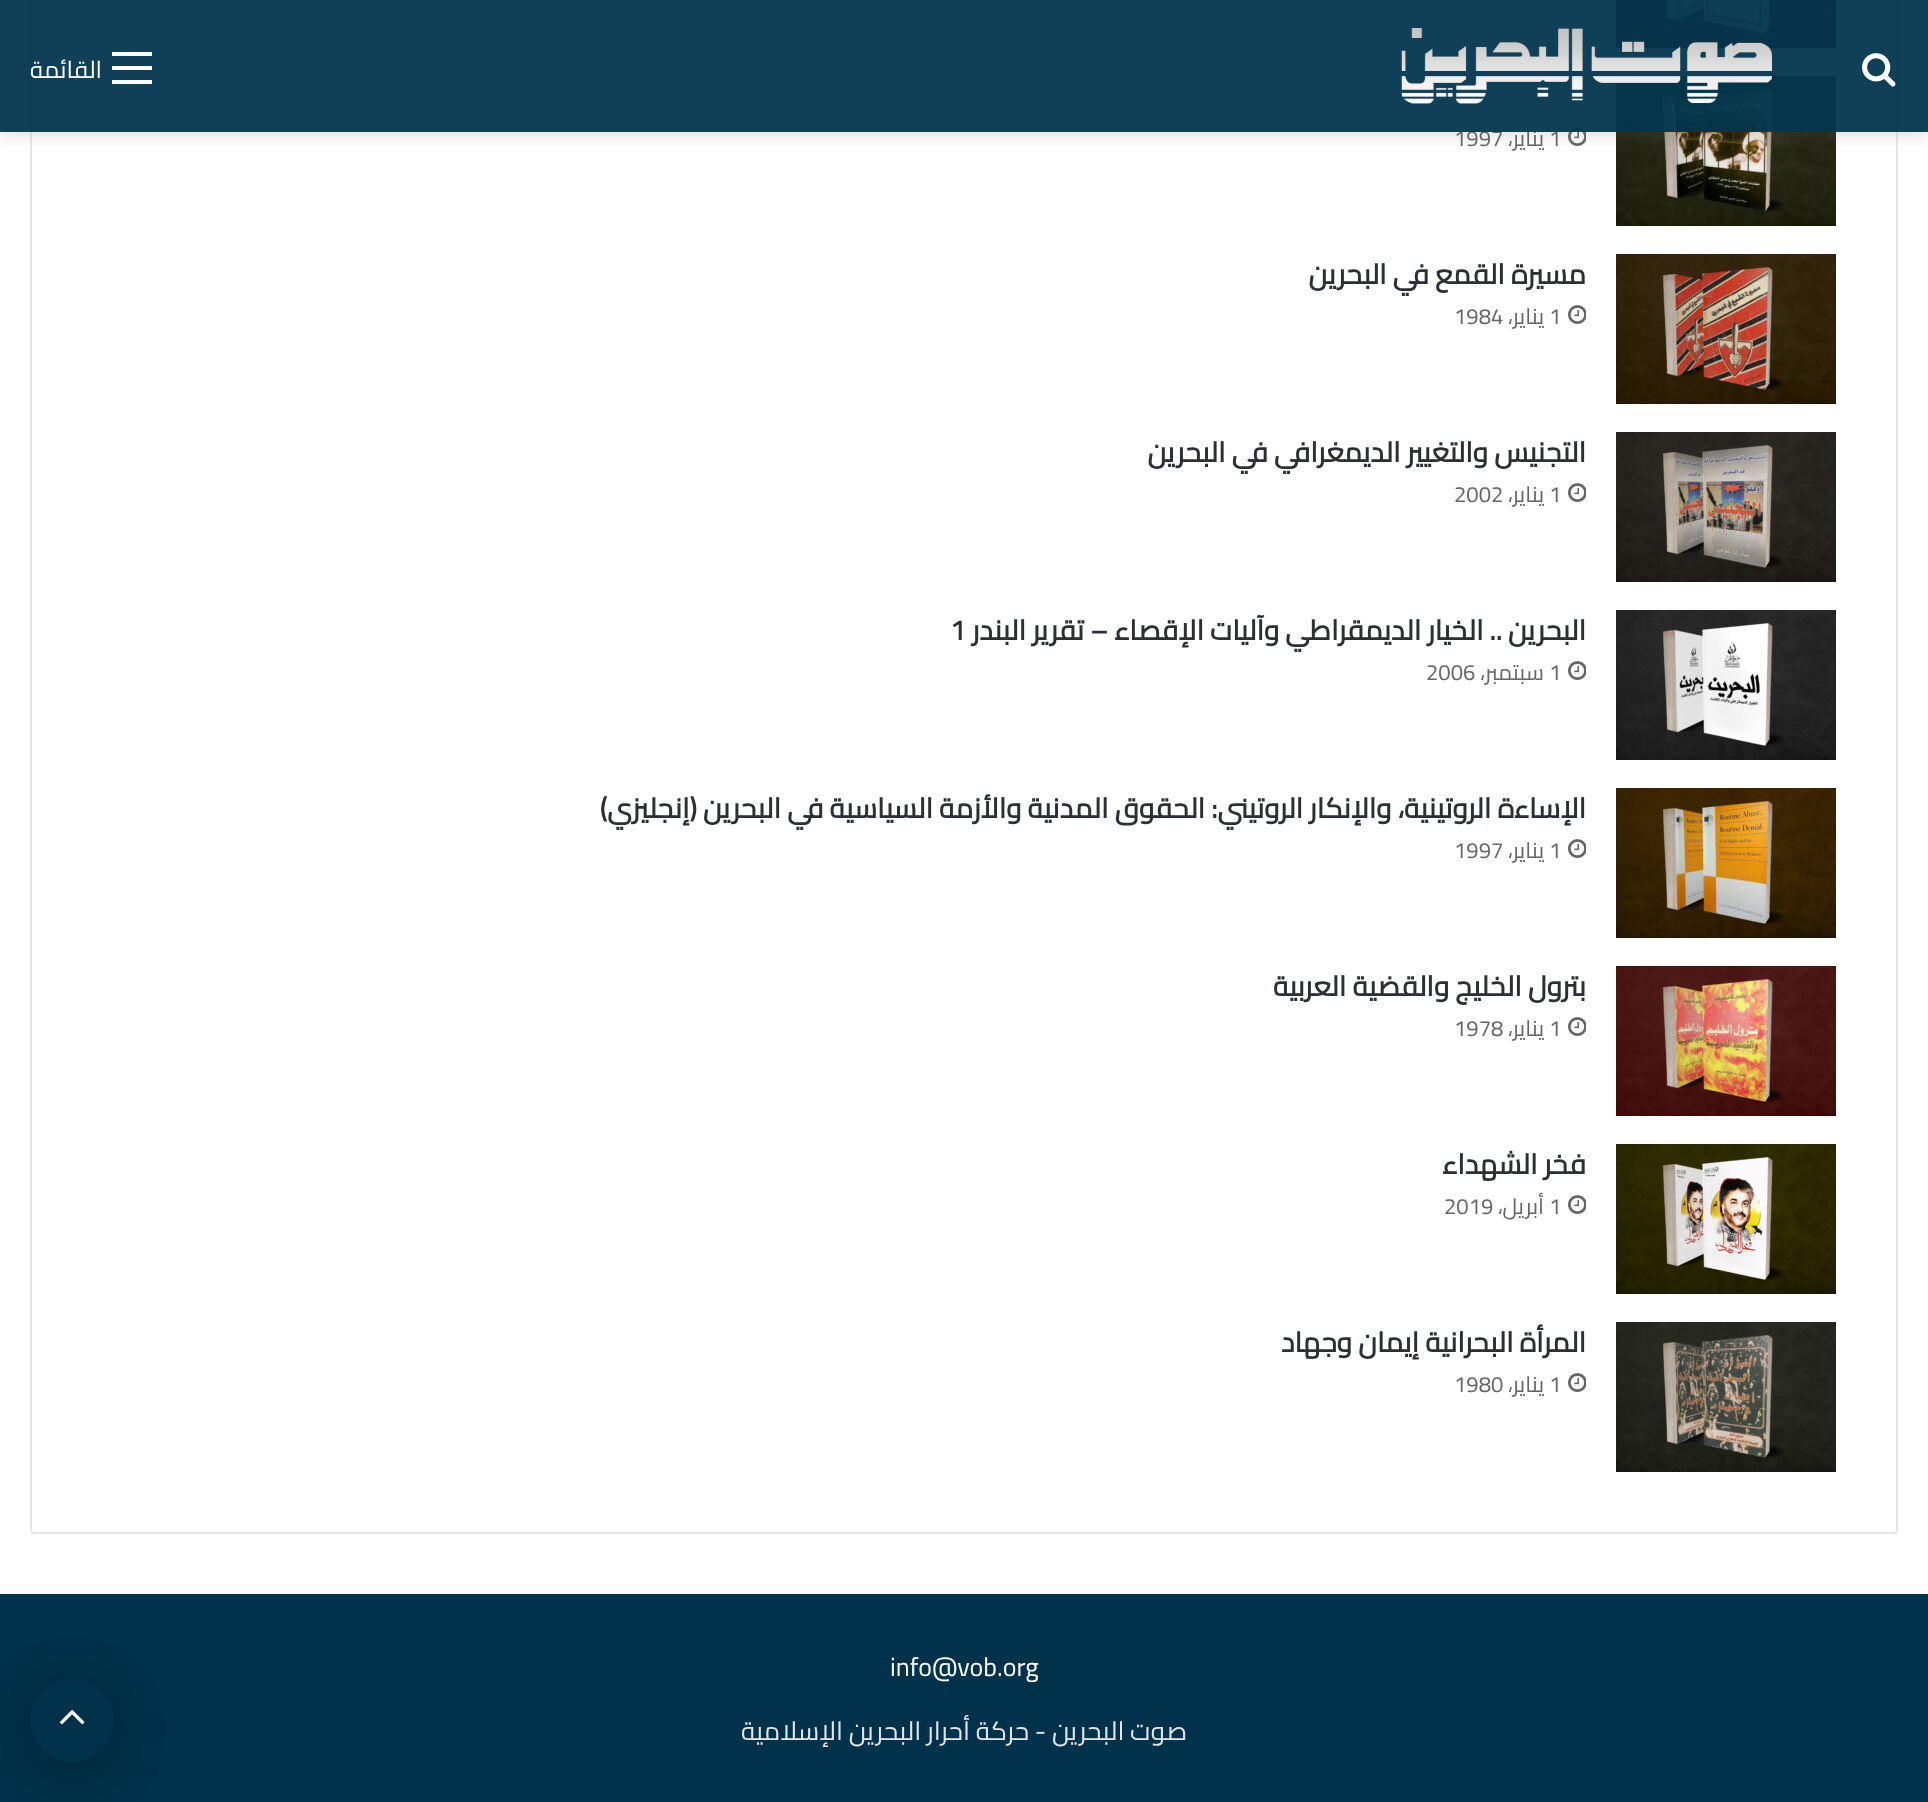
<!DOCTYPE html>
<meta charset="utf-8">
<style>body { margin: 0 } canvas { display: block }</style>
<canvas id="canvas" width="1928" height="1802"></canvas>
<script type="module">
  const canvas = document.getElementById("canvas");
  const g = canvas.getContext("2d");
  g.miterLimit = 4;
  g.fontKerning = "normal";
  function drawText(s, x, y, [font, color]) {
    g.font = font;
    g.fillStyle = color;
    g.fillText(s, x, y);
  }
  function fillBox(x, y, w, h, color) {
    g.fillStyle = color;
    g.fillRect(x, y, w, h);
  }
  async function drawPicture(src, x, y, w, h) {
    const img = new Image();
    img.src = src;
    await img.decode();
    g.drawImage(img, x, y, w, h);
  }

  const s1 = ["22px Cairo", "#666666"];
  const s2 = ["24px Cairo", "#FFFFFF"];
  const s3 = ["bold 28px Cairo", "#2C2F34"];
  const s4 = ["26px Cairo", "#FFFFFF"];
  const s5 = ["26px Cairo", "#E5E5E5"];

  fillBox(0, 0, 1928, 1802, "#FFFFFF");
  g.beginPath();
  g.roundRect(31, -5, 1866, 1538, 3);
  g.strokeStyle = "#E6E6E6";
  g.lineWidth = 2;
  g.stroke();
  await drawPicture("pic3.png", 1616, 0, 220, 48);
  await drawPicture("pic4.png", 1616, 76, 220, 150);
  await drawPicture("pic5.png", 1568, 127, 18, 19);
  g.save();
  g.beginPath();
  g.rect(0, 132, 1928, 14);
  g.clip();
  g.fillStyle = "rgba(99, 99, 99, 0.2)";
  g.filter = "blur(8px)";
  g.beginPath();
  g.rect(0, 4, 1928, 132);
  g.fill();
  g.filter = "none";
  g.restore();
  drawText("1", 1549, 146, s1);
  g.direction = "rtl";
  drawText("يناير،", 1544, 146, s1);
  g.direction = "ltr";
  drawText("1997", 1454, 146, s1);
  fillBox(0, 0, 1928, 132, "rgba(2, 54, 78, 0.95)");
  await drawPicture("pic1.png", 1862, 53, 34, 34);
  await drawPicture("pic2.png", 1401, 28, 371, 76);
  fillBox(112, 66, 40, 4, "#FFFFFF");
  fillBox(112, 52, 40, 4, "#FFFFFF");
  fillBox(112, 80, 40, 4, "#FFFFFF");
  g.direction = "rtl";
  drawText("القائمة", 102, 78, s2);
  await drawPicture("pic6.png", 1616, 254, 220, 150);
  drawText("مسيرة القمع في البحرين", 1586, 284, s3);
  await drawPicture("pic5.png", 1568, 305, 18, 19);
  g.direction = "ltr";
  drawText("1", 1549, 324, s1);
  g.direction = "rtl";
  drawText("يناير،", 1544, 324, s1);
  g.direction = "ltr";
  drawText("1984", 1454, 324, s1);
  await drawPicture("pic7.png", 1616, 432, 220, 150);
  g.direction = "rtl";
  drawText("التجنيس والتغيير الديمغرافي في البحرين", 1586, 462, s3);
  await drawPicture("pic5.png", 1568, 483, 18, 19);
  g.direction = "ltr";
  drawText("1", 1549, 502, s1);
  g.direction = "rtl";
  drawText("يناير،", 1544, 502, s1);
  g.direction = "ltr";
  drawText("2002", 1454, 502, s1);
  await drawPicture("pic8.png", 1616, 610, 220, 150);
  g.direction = "rtl";
  drawText("البحرين .. الخيار الديمقراطي وآليات الإقصاء – تقرير البندر", 1586, 640, s3);
  g.direction = "ltr";
  drawText("1", 950, 640, s3);
  await drawPicture("pic5.png", 1568, 661, 18, 19);
  drawText("1", 1549, 680, s1);
  g.direction = "rtl";
  drawText("سبتمبر،", 1544, 680, s1);
  g.direction = "ltr";
  drawText("2006", 1426, 680, s1);
  await drawPicture("pic9.png", 1616, 788, 220, 150);
  g.direction = "rtl";
  drawText("الإساءة الروتينية، والإنكار الروتيني: الحقوق المدنية والأزمة السياسية في البحرين (إنجليزي)", 1586, 818, s3);
  await drawPicture("pic5.png", 1568, 839, 18, 19);
  g.direction = "ltr";
  drawText("1", 1549, 858, s1);
  g.direction = "rtl";
  drawText("يناير،", 1544, 858, s1);
  g.direction = "ltr";
  drawText("1997", 1454, 858, s1);
  await drawPicture("pic10.png", 1616, 966, 220, 150);
  g.direction = "rtl";
  drawText("بترول الخليج والقضية العربية", 1586, 996, s3);
  await drawPicture("pic5.png", 1568, 1017, 18, 19);
  g.direction = "ltr";
  drawText("1", 1549, 1036, s1);
  g.direction = "rtl";
  drawText("يناير،", 1544, 1036, s1);
  g.direction = "ltr";
  drawText("1978", 1454, 1036, s1);
  await drawPicture("pic11.png", 1616, 1144, 220, 150);
  g.direction = "rtl";
  drawText("فخر الشهداء", 1586, 1174, s3);
  await drawPicture("pic5.png", 1568, 1195, 18, 19);
  g.direction = "ltr";
  drawText("1", 1549, 1214, s1);
  g.direction = "rtl";
  drawText("أبريل،", 1544, 1214, s1);
  g.direction = "ltr";
  drawText("2019", 1444, 1214, s1);
  await drawPicture("pic12.png", 1616, 1322, 220, 150);
  g.direction = "rtl";
  drawText("المرأة البحرانية إيمان وجهاد", 1586, 1352, s3);
  await drawPicture("pic5.png", 1568, 1373, 18, 19);
  g.direction = "ltr";
  drawText("1", 1549, 1392, s1);
  g.direction = "rtl";
  drawText("يناير،", 1544, 1392, s1);
  g.direction = "ltr";
  drawText("1980", 1454, 1392, s1);
  fillBox(0, 1594, 1928, 208, "#00324B");
  drawText("info@vob.org", 890, 1676, s4);
  g.direction = "rtl";
  drawText("صوت البحرين - حركة أحرار البحرين الإسلامية", 1187, 1740, s5);
  g.fillStyle = "rgba(0, 0, 0, 0.3)";
  g.filter = "blur(25px)";
  g.beginPath();
  g.roundRect(30, 1688, 84, 84, 42);
  g.fill();
  g.filter = "none";
  g.fillStyle = "#00324B";
  g.beginPath();
  g.arc(72, 1720, 42, 0, Math.PI * 2);
  g.fill();
  await drawPicture("pic13.png", 59, 1710, 26, 15);
</script>
